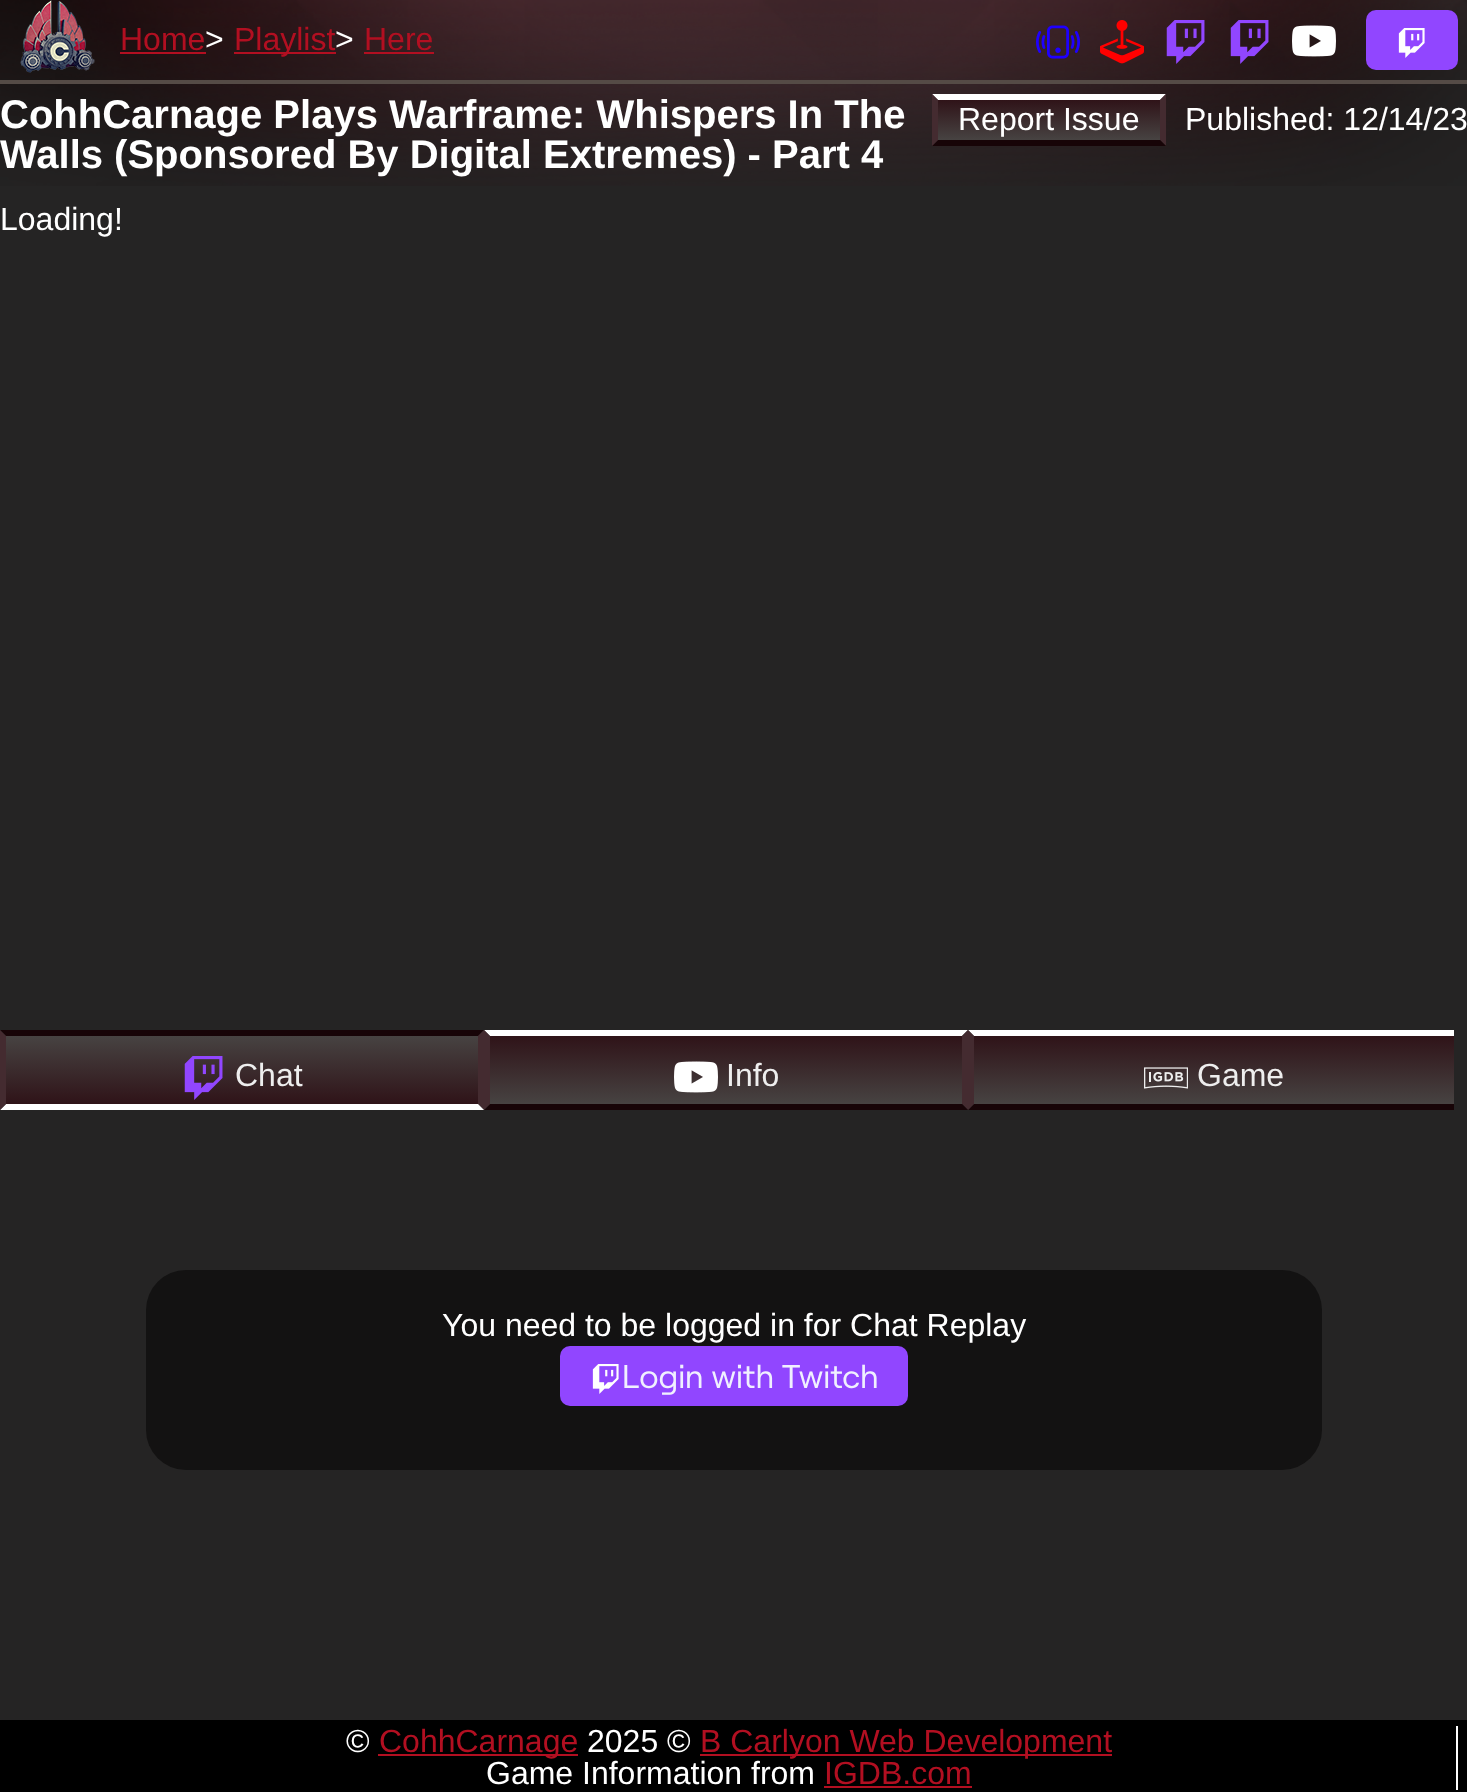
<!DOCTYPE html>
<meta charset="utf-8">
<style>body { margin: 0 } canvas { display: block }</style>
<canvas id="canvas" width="1467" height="1792"></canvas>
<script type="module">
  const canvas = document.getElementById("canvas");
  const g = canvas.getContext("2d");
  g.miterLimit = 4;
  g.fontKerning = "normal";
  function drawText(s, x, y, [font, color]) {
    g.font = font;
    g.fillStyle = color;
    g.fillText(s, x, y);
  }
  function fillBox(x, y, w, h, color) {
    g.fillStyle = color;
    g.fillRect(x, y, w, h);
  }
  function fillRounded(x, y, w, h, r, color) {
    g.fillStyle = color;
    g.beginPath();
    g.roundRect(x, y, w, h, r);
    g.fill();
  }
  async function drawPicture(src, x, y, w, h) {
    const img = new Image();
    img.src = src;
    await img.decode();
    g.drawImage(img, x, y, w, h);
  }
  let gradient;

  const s1 = ["32px Liberation Sans", "#B20F21"];
  const s2 = ["32px Liberation Sans", "#FFFFFF"];
  const s3 = ["bold 40px Liberation Sans", "#FFFFFF"];
  const s4 = ["32px Liberation Sans", "#EEEEEE"];
  const s5 = ["32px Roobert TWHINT", "#F0F0FF"];

  fillBox(0, 0, 1467, 1792, "#252424");
  await drawPicture("pic1.png", 0, 0, 1467, 186);
  await drawPicture("pic2.png", 20, 0, 75, 73);
  fillBox(0, 80, 1467, 4, "#554B46");
  drawText("Home", 120, 50, s1);
  fillBox(120, 52, 86, 2, "#B20F21");
  drawText(">", 205, 50, s2);
  fillBox(234, 52, 102, 2, "#B20F21");
  drawText("Playlist", 234, 50, s1);
  drawText(">", 335, 50, s2);
  drawText("Here", 364, 50, s1);
  fillBox(364, 52, 70, 2, "#B20F21");
  await drawPicture("pic3.png", 1036, 25, 44, 34);
  await drawPicture("pic4.png", 1100, 20, 44, 44);
  await drawPicture("pic5.png", 1166, 20, 39, 44);
  await drawPicture("pic6.png", 1230, 20, 39, 44);
  await drawPicture("pic7.png", 1292, 25, 44, 32);
  fillRounded(1366, 10, 92, 60, 10, "#9146FF");
  await drawPicture("pic8.png", 1398, 28, 27, 30);
  drawText("CohhCarnage Plays Warframe: Whispers In The", 0, 128, s3);
  drawText("Walls (Sponsored By Digital Extremes) - Part 4", 0, 168, s3);
  gradient = g.createLinearGradient(1049, 100, 1049, 140);
  gradient.addColorStop(0, "#2F1318");
  gradient.addColorStop(1, "#474342");
  g.fillStyle = gradient;
  g.fillRect(938, 100, 222, 40);
  g.fillStyle = "#FFFFFF";
  g.beginPath();
  g.moveTo(932, 94);
  g.lineTo(1166, 94);
  g.lineTo(1160, 100);
  g.lineTo(938, 100);
  g.closePath();
  g.fill();
  g.fillStyle = "#442B30";
  g.beginPath();
  g.moveTo(1166, 94);
  g.lineTo(1166, 146);
  g.lineTo(1160, 140);
  g.lineTo(1160, 100);
  g.closePath();
  g.fill();
  g.fillStyle = "#170407";
  g.beginPath();
  g.moveTo(1166, 146);
  g.lineTo(932, 146);
  g.lineTo(938, 140);
  g.lineTo(1160, 140);
  g.closePath();
  g.fill();
  g.fillStyle = "#442B30";
  g.beginPath();
  g.moveTo(932, 146);
  g.lineTo(932, 94);
  g.lineTo(938, 100);
  g.lineTo(938, 140);
  g.closePath();
  g.fill();
  drawText("Report Issue", 958, 130, s2);
  drawText("Published: 12/14/23", 1185, 130, s2);
  drawText("Loading!", 0, 230, s2);
  gradient = g.createLinearGradient(242, 1036, 242, 1104);
  gradient.addColorStop(0, "#474342");
  gradient.addColorStop(1, "#2F1318");
  g.fillStyle = gradient;
  g.fillRect(6, 1036, 472, 68);
  g.fillStyle = "#170407";
  g.beginPath();
  g.moveTo(0, 1030);
  g.lineTo(484, 1030);
  g.lineTo(478, 1036);
  g.lineTo(6, 1036);
  g.closePath();
  g.fill();
  g.fillStyle = "#442B30";
  g.beginPath();
  g.moveTo(484, 1030);
  g.lineTo(484, 1110);
  g.lineTo(478, 1104);
  g.lineTo(478, 1036);
  g.closePath();
  g.fill();
  g.fillStyle = "#FFFFFF";
  g.beginPath();
  g.moveTo(484, 1110);
  g.lineTo(0, 1110);
  g.lineTo(6, 1104);
  g.lineTo(478, 1104);
  g.closePath();
  g.fill();
  g.fillStyle = "#442B30";
  g.beginPath();
  g.moveTo(0, 1110);
  g.lineTo(0, 1030);
  g.lineTo(6, 1036);
  g.lineTo(6, 1104);
  g.closePath();
  g.fill();
  await drawPicture("pic9.png", 184, 1056, 39, 44);
  drawText("Chat", 235, 1086, s4);
  gradient = g.createLinearGradient(726, 1036, 726, 1104);
  gradient.addColorStop(0, "#2F1318");
  gradient.addColorStop(1, "#474342");
  g.fillStyle = gradient;
  g.fillRect(490, 1036, 472, 68);
  g.fillStyle = "#FFFFFF";
  g.beginPath();
  g.moveTo(484, 1030);
  g.lineTo(968, 1030);
  g.lineTo(962, 1036);
  g.lineTo(490, 1036);
  g.closePath();
  g.fill();
  g.fillStyle = "#442B30";
  g.beginPath();
  g.moveTo(968, 1030);
  g.lineTo(968, 1110);
  g.lineTo(962, 1104);
  g.lineTo(962, 1036);
  g.closePath();
  g.fill();
  g.fillStyle = "#170407";
  g.beginPath();
  g.moveTo(968, 1110);
  g.lineTo(484, 1110);
  g.lineTo(490, 1104);
  g.lineTo(962, 1104);
  g.closePath();
  g.fill();
  g.fillStyle = "#442B30";
  g.beginPath();
  g.moveTo(484, 1110);
  g.lineTo(484, 1030);
  g.lineTo(490, 1036);
  g.lineTo(490, 1104);
  g.closePath();
  g.fill();
  await drawPicture("pic10.png", 674, 1061, 44, 32);
  drawText("Info", 726, 1086, s4);
  gradient = g.createLinearGradient(1214, 1036, 1214, 1104);
  gradient.addColorStop(0, "#2F1318");
  gradient.addColorStop(1, "#474342");
  g.fillStyle = gradient;
  g.fillRect(974, 1036, 480, 68);
  g.fillStyle = "#FFFFFF";
  g.beginPath();
  g.moveTo(968, 1030);
  g.lineTo(1454, 1030);
  g.lineTo(1454, 1036);
  g.lineTo(974, 1036);
  g.closePath();
  g.fill();
  g.fillStyle = "#170407";
  g.beginPath();
  g.moveTo(1454, 1110);
  g.lineTo(968, 1110);
  g.lineTo(974, 1104);
  g.lineTo(1454, 1104);
  g.closePath();
  g.fill();
  g.fillStyle = "#442B30";
  g.beginPath();
  g.moveTo(968, 1110);
  g.lineTo(968, 1030);
  g.lineTo(974, 1036);
  g.lineTo(974, 1104);
  g.closePath();
  g.fill();
  await drawPicture("pic11.png", 1144, 1067, 44, 22);
  drawText("Game", 1197, 1086, s4);
  fillRounded(146, 1270, 1176, 200, 40, "#131212");
  drawText("You need to be logged in for Chat Replay", 442, 1336, s2);
  fillRounded(560, 1346, 348, 60, 10, "#9146FF");
  await drawPicture("pic8.png", 592, 1364, 27, 30);
  drawText("Login with Twitch", 622, 1388, s5);
  fillBox(0, 1720, 1467, 72, "#000000");
  fillBox(1456, 1726, 2, 64, "#FFFFFF");
  drawText("©", 346, 1752, s2);
  fillBox(378, 1754, 200, 2, "#B20F21");
  drawText("CohhCarnage", 379, 1752, s1);
  drawText("2025 ©", 587, 1752, s2);
  fillBox(700, 1754, 412, 2, "#B20F21");
  drawText("B Carlyon Web Development", 700, 1752, s1);
  drawText("Game Information from", 486, 1784, s2);
  drawText("IGDB.com", 824, 1784, s1);
  fillBox(824, 1786, 148, 2, "#B20F21");
</script>
